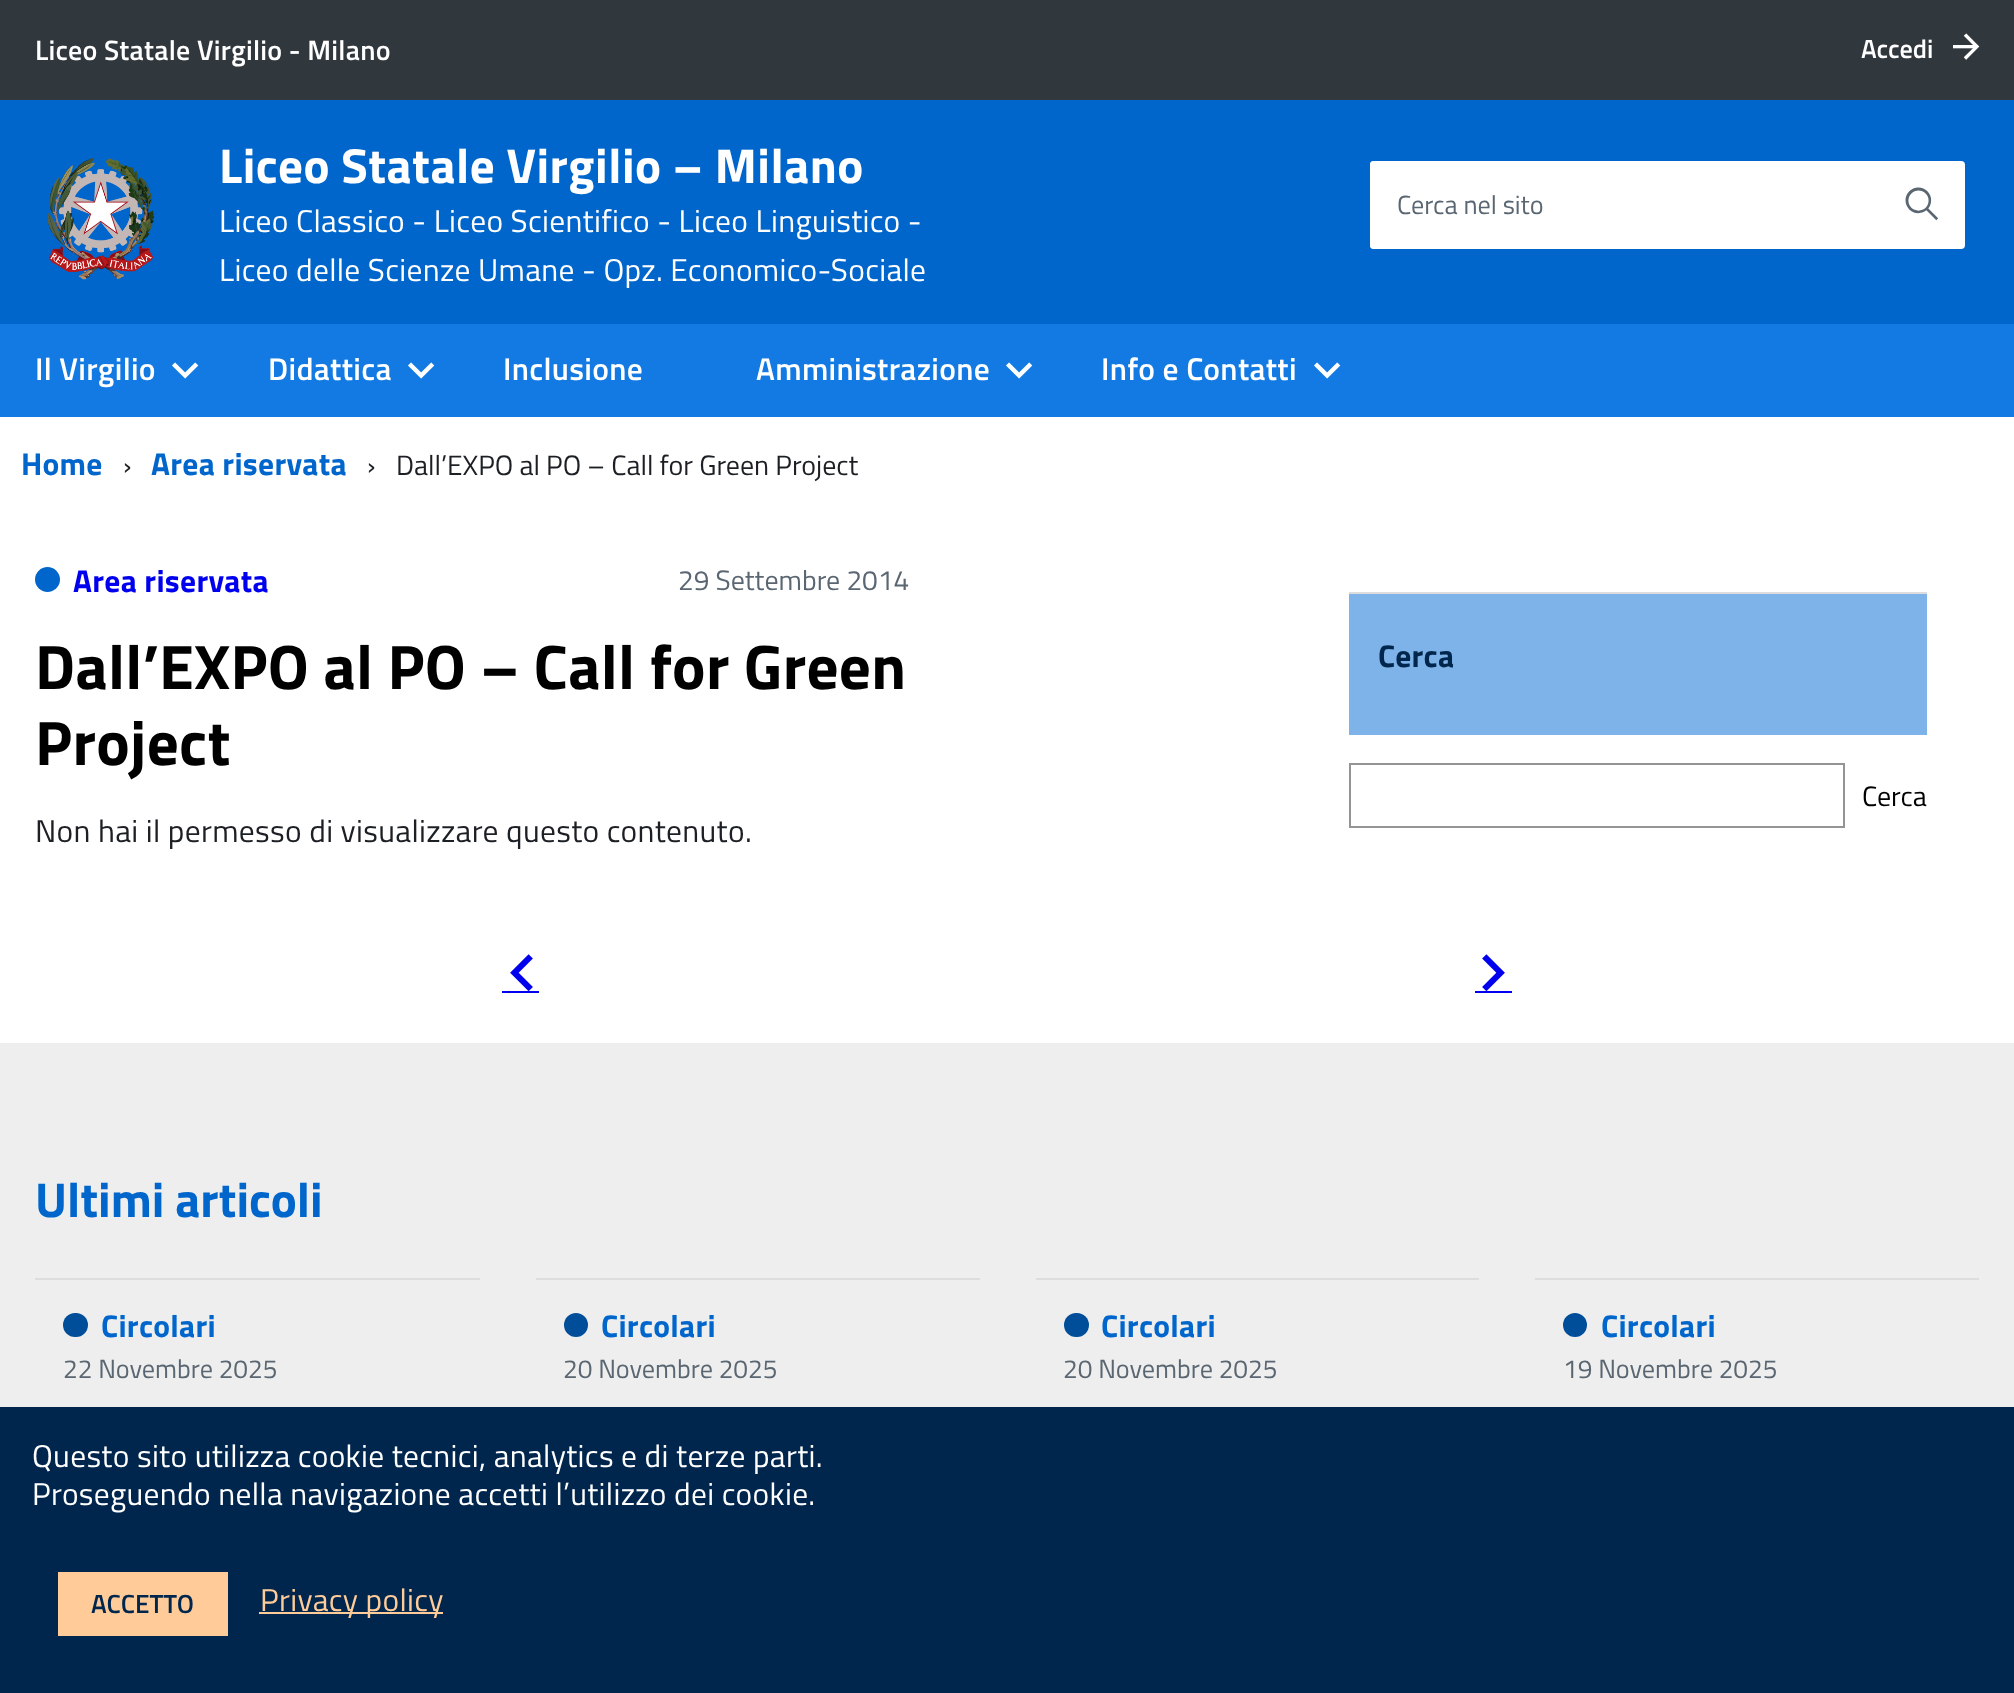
<!DOCTYPE html>
<meta charset="utf-8">
<style>body { margin: 0 } canvas { display: block }</style>
<canvas id="canvas" width="2014" height="1693"></canvas>
<script type="module">
  const canvas = document.getElementById("canvas");
  const g = canvas.getContext("2d");
  g.miterLimit = 4;
  g.fontKerning = "normal";
  function drawText(s, x, y, [font, color]) {
    g.font = font;
    g.fillStyle = color;
    g.fillText(s, x, y);
  }
  function fillBox(x, y, w, h, color) {
    g.fillStyle = color;
    g.fillRect(x, y, w, h);
  }
  function fillRounded(x, y, w, h, r, color) {
    g.fillStyle = color;
    g.beginPath();
    g.roundRect(x, y, w, h, r);
    g.fill();
  }
  async function drawPicture(src, x, y, w, h) {
    const img = new Image();
    img.src = src;
    await img.decode();
    g.drawImage(img, x, y, w, h);
  }

  const s1 = ["600 28px Titillium Web", "#FFFFFF"];
  const s2 = ["600 26.25px Titillium Web", "#FFFFFF"];
  const s3 = ["26.25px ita", "#FFFFFF"];
  const s4 = ["bold 49px Titillium Web", "#FFFFFF"];
  const s5 = ["31.5px Titillium Web", "#FFFFFF"];
  const s6 = ["26.25px Titillium Web", "#5A6772"];
  const s7 = ["600 31.5px Titillium Web", "#FFFFFF"];
  const s8 = ["bold 31.5px Titillium Web", "#0066CC"];
  const s9 = ["28px Titillium Web", "#1C2024"];
  const s10 = ["bold 31.5px Titillium Web", "#0000EE"];
  const s11 = ["28px Titillium Web", "#5A6772"];
  const s12 = ["bold 63px Titillium Web", "#000000"];
  const s13 = ["31.5px Titillium Web", "#1C2024"];
  const s14 = ["bold 31.5px Titillium Web", "#00264D"];
  const s15 = ["28px Titillium Web", "#000000"];
  const s16 = ["37px ita", "#0000EE"];
  const s17 = ["bold 49px Titillium Web", "#0066CC"];
  const s18 = ["600 26.25px Titillium Web", "#00264D"];
  const s19 = ["31.5px Titillium Web", "#FFCC99"];

  fillBox(0, 0, 2014, 1693, "#FFFFFF");
  fillBox(0, 0, 2014, 100, "#30373D");
  g.letterSpacing = "0.25px";
  drawText("Liceo Statale Virgilio - Milano", 35, 60, s1);
  g.letterSpacing = "0px";
  drawText("Accedi", 1861, 58, s2);
  drawText("⟶", 1953, 58, s3);
  fillBox(0, 100, 2014, 224, "#0066CC");
  await drawPicture("pic1.png", 48, 158, 107, 122);
  g.letterSpacing = "0.5px";
  drawText("Liceo Statale Virgilio – Milano", 219, 183, s4);
  g.letterSpacing = "0.32px";
  drawText("Liceo Classico - Liceo Scientifico - Liceo Linguistico -", 219, 232, s5);
  drawText("Liceo delle Scienze Umane - Opz. Economico-Sociale", 219, 281, s5);
  fillRounded(1370, 161, 595, 88, 4, "#FFFFFF");
  fillRounded(1370, 161, 508, 88, 4, "#FFFFFF");
  g.letterSpacing = "0px";
  g.font = "bold 31.5px ita";
  g.fillStyle = "#5A6772";
  g.save();
  g.translate(1936, 220);
  g.rotate(-90 * Math.PI / 180);
  g.fillText("🔍", 0, 0);
  g.restore();
  drawText("Cerca nel sito", 1397, 214, s6);
  fillBox(0, 324, 2014, 93, "#127AE2");
  g.letterSpacing = "0.32px";
  drawText("Il Virgilio", 35, 380, s7);
  drawText("⏶", 172, 382, s3);
  drawText("Didattica", 268, 380, s7);
  drawText("⏶", 408, 382, s3);
  drawText("Inclusione", 503, 380, s7);
  drawText("Amministrazione", 756, 380, s7);
  drawText("⏶", 1006, 382, s3);
  drawText("Info e Contatti", 1101, 380, s7);
  drawText("⏶", 1314, 382, s3);
  drawText("Home", 21, 475, s8);
  g.letterSpacing = "0px";
  drawText("›", 123, 475, s9);
  g.letterSpacing = "0.32px";
  drawText("Area riservata", 151, 475, s8);
  g.letterSpacing = "0px";
  drawText("›", 367, 475, s9);
  drawText("Dall’EXPO al PO – Call for Green Project", 396, 475, s9);
  g.fillStyle = "#0066CC";
  g.beginPath();
  g.arc(47.5, 579.5, 12.5, 0, Math.PI * 2);
  g.fill();
  g.letterSpacing = "0.32px";
  drawText("Area riservata", 73, 592, s10);
  g.letterSpacing = "0px";
  drawText("29 Settembre 2014", 678, 590, s11);
  g.letterSpacing = "0.32px";
  drawText("Dall’EXPO al PO – Call for Green", 35, 689, s12);
  drawText("Project", 35, 765, s12);
  drawText("Non hai il permesso di visualizzare questo contenuto.", 35, 842, s13);
  fillBox(1349, 594, 578, 141, "#7DB3E8");
  fillBox(1349, 592, 578, 2, "#DDDDDD");
  drawText("Cerca", 1378, 667, s14);
  g.strokeStyle = "#949494";
  g.lineWidth = 2;
  g.strokeRect(1350, 764, 494, 63);
  g.letterSpacing = "0px";
  drawText("Cerca", 1862, 806, s15);
  fillBox(502, 991, 37, 2, "#0000EE");
  drawText("⏴", 503, 989, s16);
  fillBox(1475, 991, 37, 2, "#0000EE");
  drawText("⏵", 1475, 989, s16);
  fillBox(0, 1043, 2014, 364, "#EEEEEE");
  drawText("Ultimi articoli", 35, 1217, s17);
  fillBox(35, 1278, 445, 2, "#DDDDDD");
  fillRounded(63, 1313, 25, 24, 12, "#004D99");
  g.letterSpacing = "0.32px";
  drawText("Circolari", 101, 1337, s8);
  g.letterSpacing = "0px";
  drawText("22 Novembre 2025", 63, 1378, s6);
  fillBox(536, 1278, 444, 2, "#DDDDDD");
  g.fillStyle = "#004D99";
  g.beginPath();
  g.arc(576, 1325, 12, 0, Math.PI * 2);
  g.fill();
  g.letterSpacing = "0.32px";
  drawText("Circolari", 601, 1337, s8);
  g.letterSpacing = "0px";
  drawText("20 Novembre 2025", 563, 1378, s6);
  fillBox(1036, 1278, 443, 2, "#DDDDDD");
  fillRounded(1064, 1313, 25, 24, 12, "#004D99");
  g.letterSpacing = "0.32px";
  drawText("Circolari", 1101, 1337, s8);
  g.letterSpacing = "0px";
  drawText("20 Novembre 2025", 1063, 1378, s6);
  fillBox(1535, 1278, 444, 2, "#DDDDDD");
  g.fillStyle = "#004D99";
  g.beginPath();
  g.arc(1575, 1325, 12, 0, Math.PI * 2);
  g.fill();
  g.letterSpacing = "0.32px";
  drawText("Circolari", 1601, 1337, s8);
  g.letterSpacing = "0px";
  drawText("19 Novembre 2025", 1563, 1378, s6);
  fillBox(0, 1407, 2014, 286, "#00264D");
  g.letterSpacing = "0.32px";
  drawText("Questo sito utilizza cookie tecnici, analytics e di terze parti.", 32, 1467, s5);
  drawText("Proseguendo nella navigazione accetti l’utilizzo dei cookie.", 32, 1505, s5);
  fillBox(58, 1572, 170, 64, "#FFCC99");
  g.letterSpacing = "0px";
  drawText("ACCETTO", 91, 1613, s18);
  fillBox(259, 1612, 184, 2, "#FFCC99");
  g.letterSpacing = "0.32px";
  drawText("Privacy policy", 260, 1611, s19);
</script>
